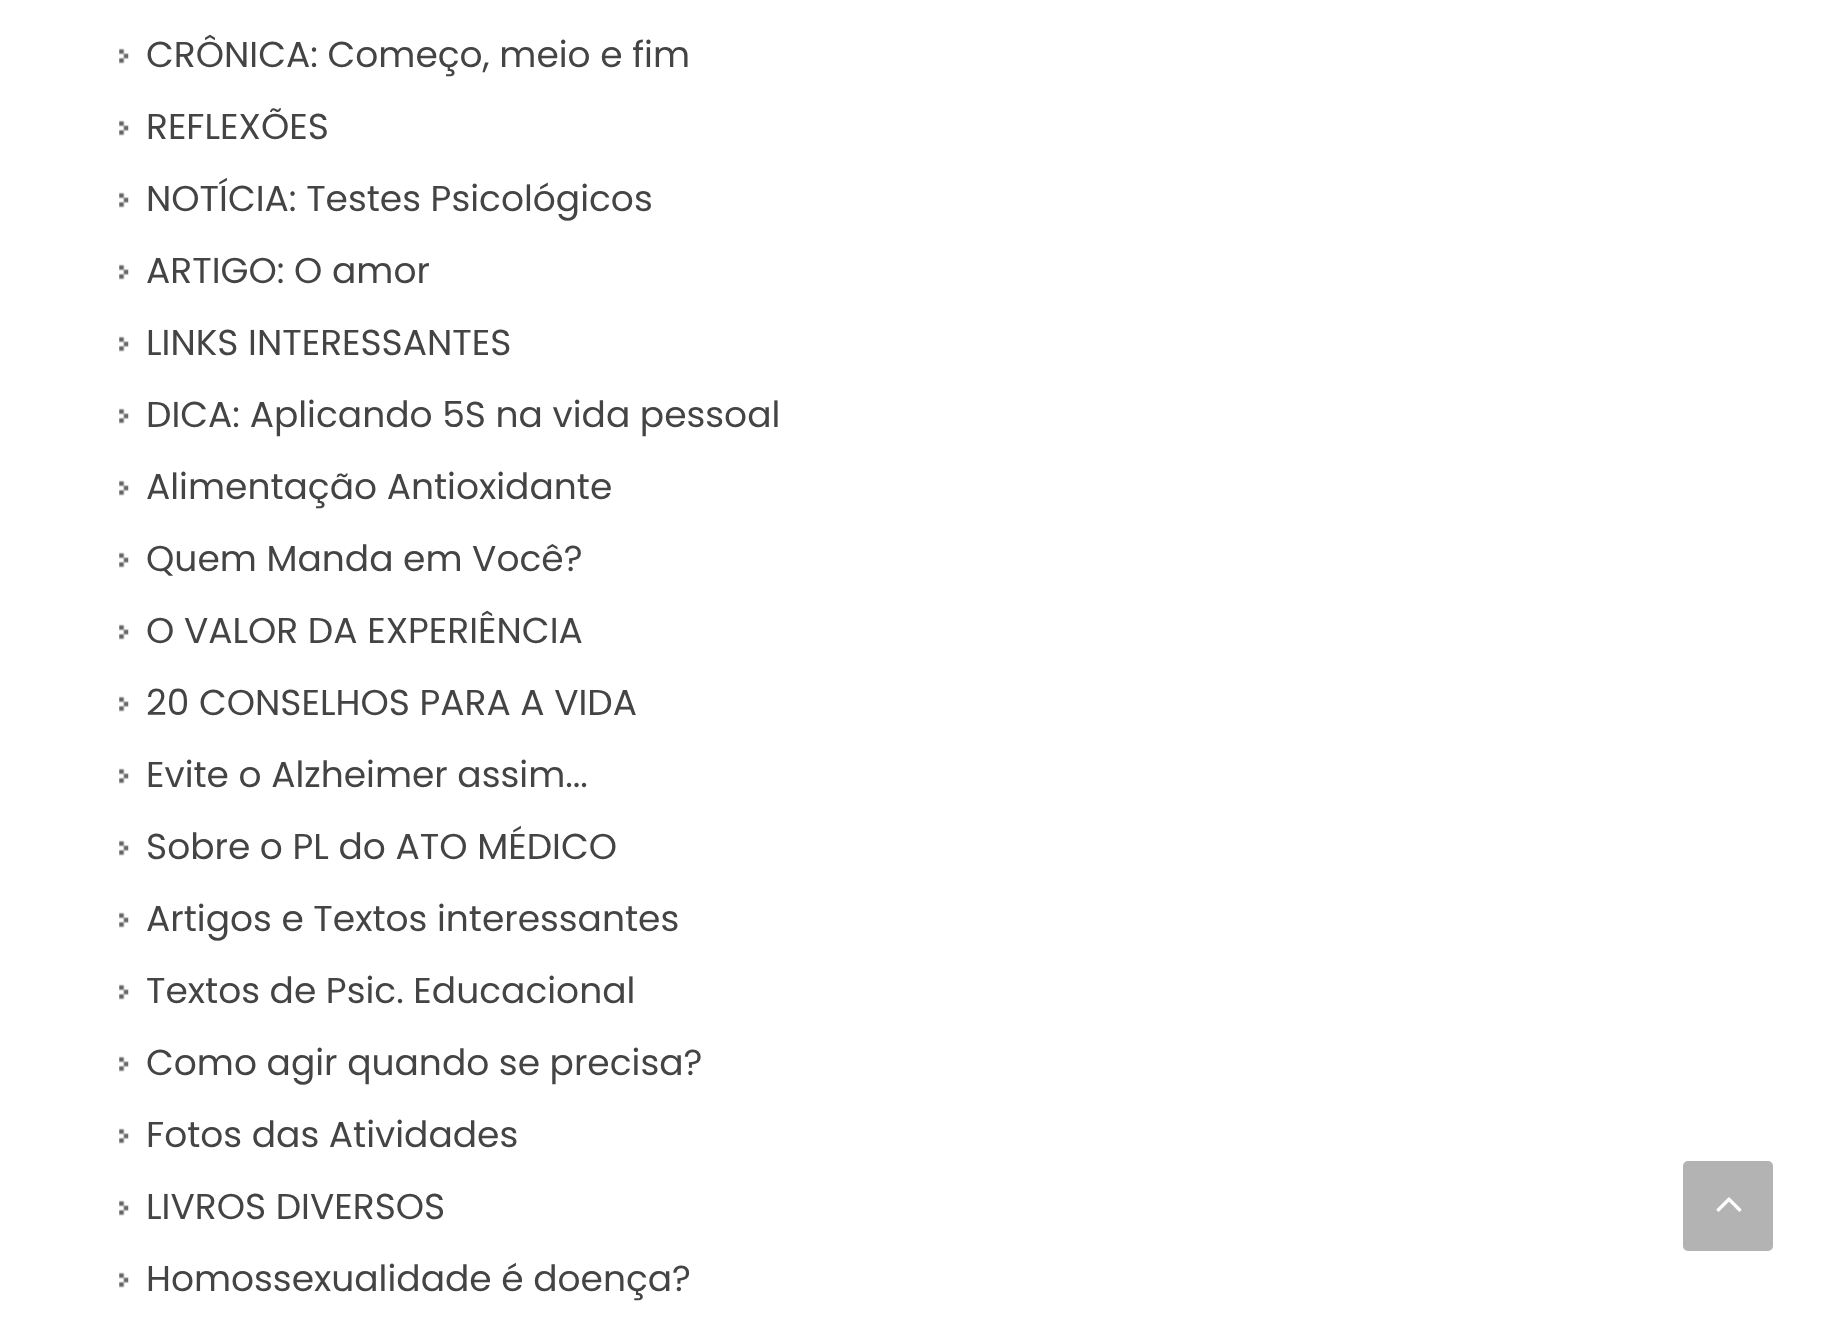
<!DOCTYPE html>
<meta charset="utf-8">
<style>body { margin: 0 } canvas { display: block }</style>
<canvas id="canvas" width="1839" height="1318"></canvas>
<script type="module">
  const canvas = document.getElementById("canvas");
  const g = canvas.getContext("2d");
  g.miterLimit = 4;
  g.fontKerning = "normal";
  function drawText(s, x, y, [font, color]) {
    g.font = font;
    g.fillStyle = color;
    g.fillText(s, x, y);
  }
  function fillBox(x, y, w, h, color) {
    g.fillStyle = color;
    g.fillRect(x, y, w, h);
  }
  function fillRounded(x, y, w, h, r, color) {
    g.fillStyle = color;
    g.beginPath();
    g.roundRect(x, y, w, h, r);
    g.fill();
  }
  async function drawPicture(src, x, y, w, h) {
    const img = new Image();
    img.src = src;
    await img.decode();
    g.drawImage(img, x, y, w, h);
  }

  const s1 = ["36px Poppins", "#444444"];

  fillBox(0, 0, 1839, 1318, "#FFFFFF");
  await drawPicture("pic1.png", 119, 48, 10, 16);
  drawText("CRÔNICA: Começo, meio e fim", 146, 67, s1);
  await drawPicture("pic1.png", 119, 120, 10, 16);
  drawText("REFLEXÕES", 146, 139, s1);
  await drawPicture("pic1.png", 119, 192, 10, 16);
  drawText("NOTÍCIA: Testes Psicológicos", 146, 211, s1);
  await drawPicture("pic1.png", 119, 264, 10, 16);
  drawText("ARTIGO: O amor", 146, 283, s1);
  await drawPicture("pic1.png", 119, 336, 10, 16);
  drawText("LINKS INTERESSANTES", 146, 355, s1);
  await drawPicture("pic1.png", 119, 408, 10, 16);
  drawText("DICA: Aplicando 5S na vida pessoal", 146, 427, s1);
  await drawPicture("pic1.png", 119, 480, 10, 16);
  drawText("Alimentação Antioxidante", 146, 499, s1);
  await drawPicture("pic1.png", 119, 552, 10, 16);
  drawText("Quem Manda em Você?", 146, 571, s1);
  await drawPicture("pic1.png", 119, 624, 10, 16);
  drawText("O VALOR DA EXPERIÊNCIA", 146, 643, s1);
  await drawPicture("pic1.png", 119, 696, 10, 16);
  drawText("20 CONSELHOS PARA A VIDA", 146, 715, s1);
  await drawPicture("pic1.png", 119, 768, 10, 16);
  drawText("Evite o Alzheimer assim...", 146, 787, s1);
  await drawPicture("pic1.png", 119, 840, 10, 16);
  drawText("Sobre o PL do ATO MÉDICO", 146, 859, s1);
  await drawPicture("pic1.png", 119, 912, 10, 16);
  drawText("Artigos e Textos interessantes", 146, 931, s1);
  await drawPicture("pic1.png", 119, 984, 10, 16);
  drawText("Textos de Psic. Educacional", 146, 1003, s1);
  await drawPicture("pic1.png", 119, 1056, 10, 16);
  drawText("Como agir quando se precisa?", 146, 1075, s1);
  await drawPicture("pic1.png", 119, 1128, 10, 16);
  drawText("Fotos das Atividades", 146, 1147, s1);
  await drawPicture("pic1.png", 119, 1200, 10, 16);
  drawText("LIVROS DIVERSOS", 146, 1219, s1);
  await drawPicture("pic1.png", 119, 1272, 10, 16);
  drawText("Homossexualidade é doença?", 146, 1291, s1);
  fillRounded(1683, 1161, 90, 90, 5, "#B3B3B3");
  await drawPicture("pic2.png", 1716, 1197, 26, 15);
</script>
